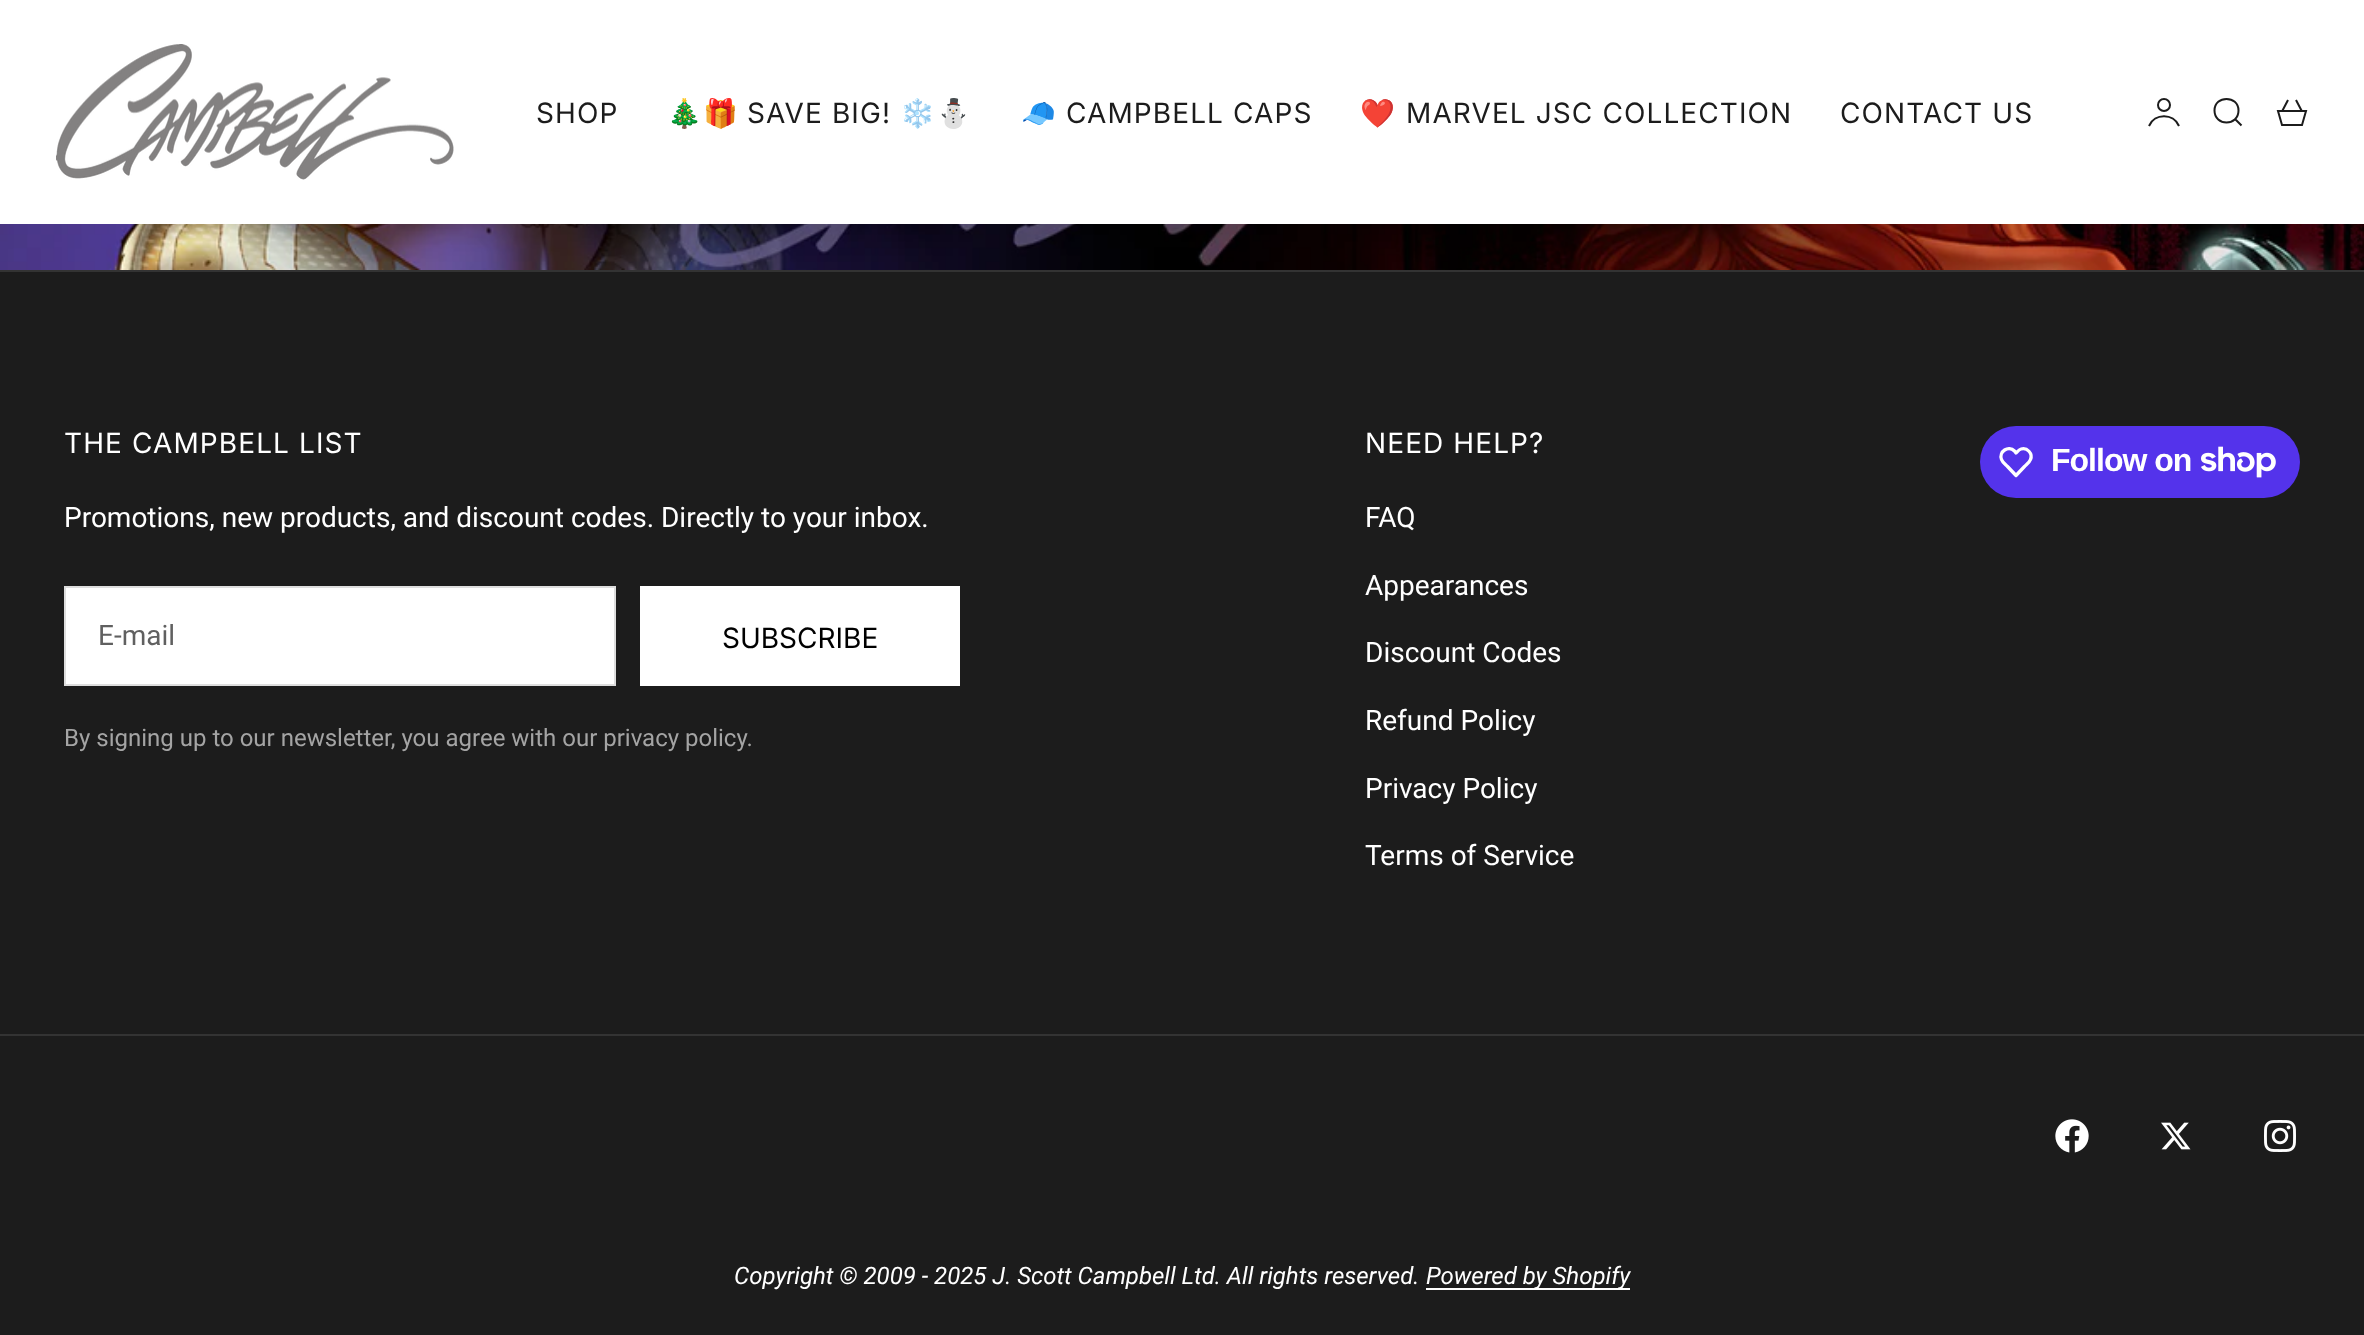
<!DOCTYPE html>
<meta charset="utf-8">
<style>body { margin: 0 } canvas { display: block }</style>
<canvas id="canvas" width="2364" height="1335"></canvas>
<script type="module">
  const canvas = document.getElementById("canvas");
  const g = canvas.getContext("2d");
  g.miterLimit = 4;
  g.fontKerning = "normal";
  function drawText(s, x, y, [font, color]) {
    g.font = font;
    g.fillStyle = color;
    g.fillText(s, x, y);
  }
  function fillBox(x, y, w, h, color) {
    g.fillStyle = color;
    g.fillRect(x, y, w, h);
  }
  function fillRounded(x, y, w, h, r, color) {
    g.fillStyle = color;
    g.beginPath();
    g.roundRect(x, y, w, h, r);
    g.fill();
  }
  async function drawPicture(src, x, y, w, h) {
    const img = new Image();
    img.src = src;
    await img.decode();
    g.drawImage(img, x, y, w, h);
  }

  const s1 = ["28px Inter", "#1C1C1C"];
  const s2 = ["28px Noto Color Emoji", "#1C1C1C"];
  const s3 = ["28px Inter", "#FFFFFF"];
  const s4 = ["28px Roboto", "#FFFFFF"];
  const s5 = ["28px Roboto", "#606060"];
  const s6 = ["28px Inter", "#000000"];
  const s7 = ["24px Roboto", "#A4A4A4"];
  const s8 = ["bold 32px Liberation Sans", "#FFFFFF"];
  const s9 = ["italic 24px Roboto", "#FFFFFF"];

  fillBox(0, 0, 2364, 1335, "#1C1C1C");
  fillBox(0, 0, 2364, 224, "#FFFFFF");
  await drawPicture("pic1.png", 56, 44, 398, 136);
  g.letterSpacing = "1.1px";
  drawText("SHOP", 536, 123, s1);
  drawText("🎄🎁", 667, 123, s2);
  drawText("SAVE BIG!", 747, 123, s1);
  drawText("❄️⛄", 900, 123, s2);
  drawText("🧢", 1021, 123, s2);
  drawText("CAMPBELL CAPS", 1066, 123, s1);
  drawText("❤️", 1360, 123, s2);
  drawText("MARVEL JSC COLLECTION", 1406, 123, s1);
  drawText("CONTACT US", 1840, 123, s1);
  g.beginPath();
  g.moveTo(2179, 126);
  g.bezierCurveTo(2173.5, 113, 2154.5, 113, 2149, 126);
  g.strokeStyle = "#1C1C1C";
  g.lineWidth = 2;
  g.stroke();
  g.beginPath();
  g.arc(2164, 105, 6, 0, Math.PI * 2);
  g.stroke();
  g.beginPath();
  g.moveTo(2214.5, 110.5);
  g.bezierCurveTo(2214.5, 126.5, 2238.5, 126.5, 2238.5, 110.5);
  g.bezierCurveTo(2238.5, 95, 2214.5, 95, 2214.5, 110.5);
  g.closePath();
  g.moveTo(2235, 119);
  g.lineTo(2241.5, 125.5);
  g.stroke();
  g.beginPath();
  g.moveTo(2282, 125);
  g.lineTo(2278, 111);
  g.lineTo(2306, 111);
  g.lineTo(2302, 125);
  g.closePath();
  g.moveTo(2282.5, 110.5);
  g.lineTo(2288, 100);
  g.moveTo(2301.5, 110.5);
  g.lineTo(2296, 100);
  g.stroke();
  await drawPicture("pic2.png", 0, 224, 2364, 46);
  fillBox(0, 270, 2364, 2, "#333333");
  drawText("THE CAMPBELL LIST", 64, 453, s3);
  g.letterSpacing = "0px";
  drawText("Promotions, new products, and discount codes. Directly to your inbox.", 64, 527, s4);
  g.beginPath();
  g.rect(65, 587, 550, 98);
  g.fill();
  g.strokeStyle = "#DDDDDD";
  g.stroke();
  drawText("E-mail", 98, 645, s5);
  fillBox(640, 586, 320, 100, "#FFFFFF");
  drawText("SUBSCRIBE", 722, 648, s6);
  drawText("By signing up to our newsletter, you agree with our privacy policy.", 64, 746, s7);
  g.letterSpacing = "1.1px";
  drawText("NEED HELP?", 1365, 453, s3);
  g.letterSpacing = "0px";
  drawText("FAQ", 1365, 527, s4);
  drawText("Appearances", 1365, 595, s4);
  drawText("Discount Codes", 1365, 662, s4);
  drawText("Refund Policy", 1365, 730, s4);
  drawText("Privacy Policy", 1365, 798, s4);
  drawText("Terms of Service", 1365, 865, s4);
  fillRounded(1980, 426, 320, 72, 36, "#5433EB");
  g.beginPath();
  g.moveTo(2014.5, 451);
  g.lineTo(2016, 453);
  g.bezierCurveTo(2017.5, 451.5, 2019, 449.5, 2021, 449);
  g.bezierCurveTo(2027, 447, 2033, 453.5, 2030.5, 459.5);
  g.bezierCurveTo(2029.5, 462.5, 2026.5, 464.5, 2024.5, 466.5);
  g.lineTo(2016, 475.5);
  g.lineTo(2007.5, 466.5);
  g.bezierCurveTo(2005.5, 464.5, 2002.5, 462.5, 2001.5, 459.5);
  g.bezierCurveTo(1998.5, 451.5, 2008.5, 445, 2014.5, 451);
  g.closePath();
  g.strokeStyle = "#FFFFFF";
  g.lineWidth = 3.3;
  g.lineJoin = "round";
  g.stroke();
  g.letterSpacing = "-1px";
  drawText("Follow on", 2051, 471, s8);
  await drawPicture("pic3.png", 2201, 446, 75, 32);
  fillBox(0, 1034, 2364, 2, "#333333");
  await drawPicture("pic4.png", 2055, 1119, 34, 34);
  await drawPicture("pic5.png", 2161, 1122, 30, 28);
  await drawPicture("pic6.png", 2264, 1120, 32, 32);
  g.letterSpacing = "0px";
  drawText("Copyright © 2009 - 2025 J. Scott Campbell Ltd. All rights reserved.", 734, 1284, s9);
  fillBox(1426, 1288, 204, 2, "#FFFFFF");
  drawText("Powered by Shopify", 1426, 1284, s9);
</script>
